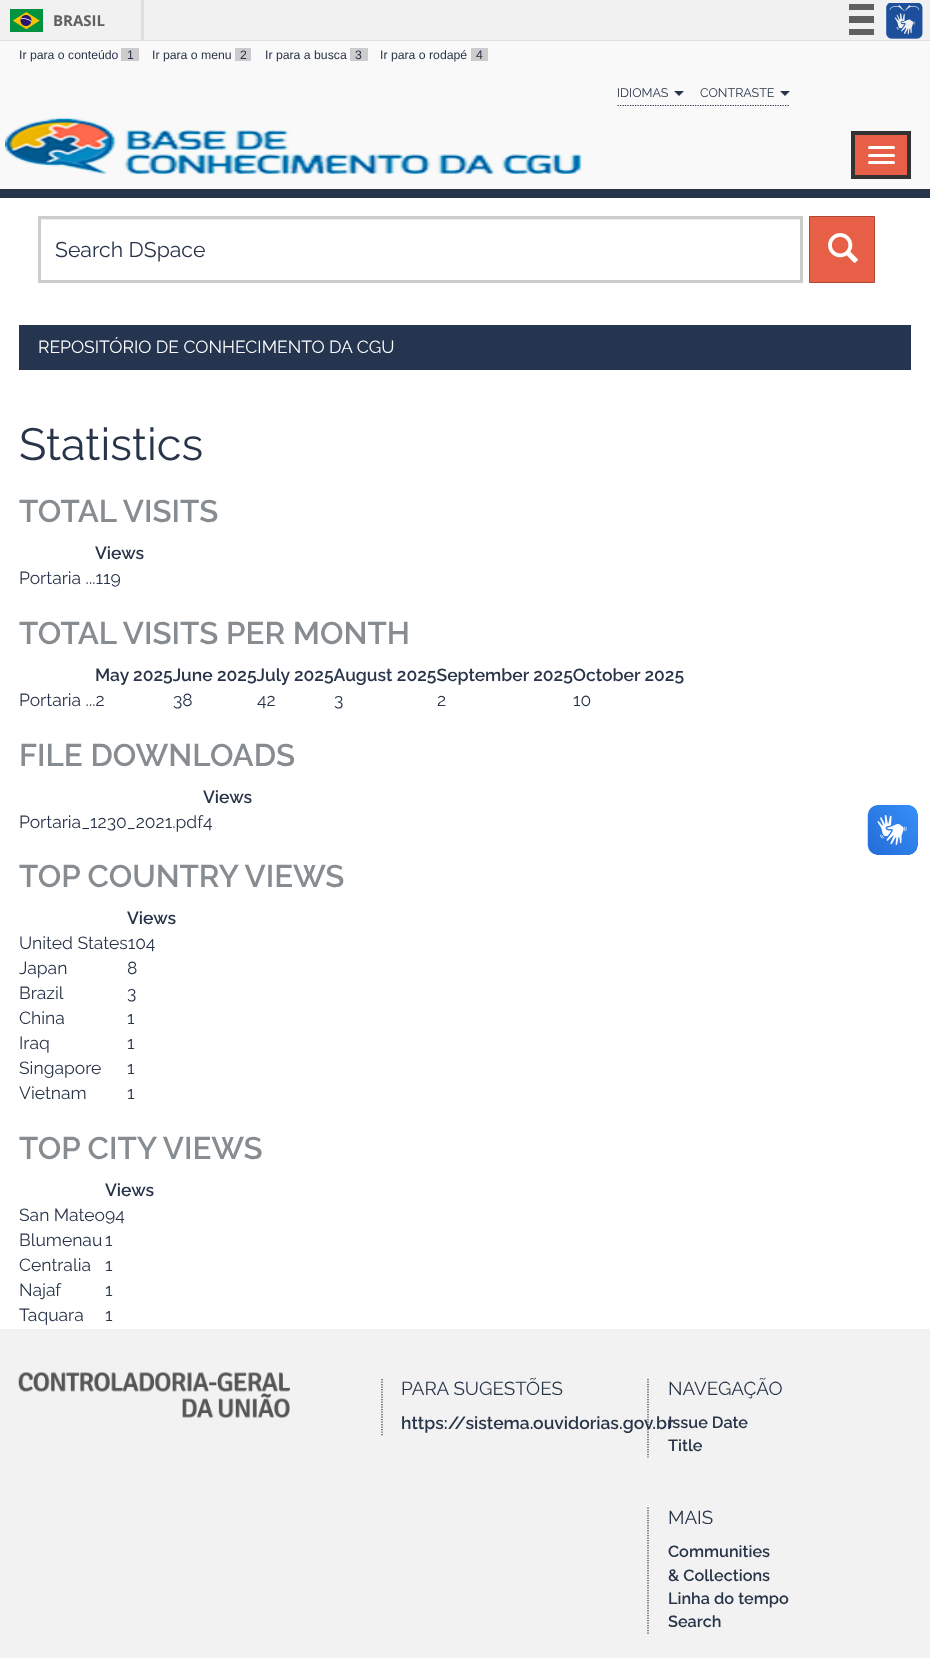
<!DOCTYPE html>
<meta charset="utf-8">
<style>body { margin: 0 } canvas { display: block }</style>
<canvas id="canvas" width="930" height="1658"></canvas>
<script type="module">
  const canvas = document.getElementById("canvas");
  const g = canvas.getContext("2d");
  g.miterLimit = 4;
  g.fontKerning = "normal";
  function drawText(s, x, y, [font, color]) {
    g.font = font;
    g.fillStyle = color;
    g.fillText(s, x, y);
  }
  function fillBox(x, y, w, h, color) {
    g.fillStyle = color;
    g.fillRect(x, y, w, h);
  }
  function fillRounded(x, y, w, h, r, color) {
    g.fillStyle = color;
    g.beginPath();
    g.roundRect(x, y, w, h, r);
    g.fill();
  }
  async function drawPicture(src, x, y, w, h) {
    const img = new Image();
    img.src = src;
    await img.decode();
    g.drawImage(img, x, y, w, h);
  }

  const s1 = ["bold 15px Open Sans", "#606060"];
  const s2 = ["12.25px Liberation Sans", "#283449"];
  const s3 = ["12.5px Raleway", "#283449"];
  const s4 = ["21.25px Raleway", "#283449"];
  const s5 = ["17.5px Raleway", "#FFFFFF"];
  const s6 = ["45px Raleway", "#283449"];
  const s7 = ["600 31.25px Raleway", "#878C91"];
  const s8 = ["600 17.5px Raleway", "#283449"];
  const s9 = ["17.5px Raleway", "#283449"];
  const s10 = ["18.75px Raleway", "#283449"];
  const s11 = ["600 16.25px Raleway", "#283449"];

  fillBox(0, 0, 930, 1658, "#FFFFFF");
  fillBox(0, 0, 930, 40, "#F1F1F1");
  fillBox(0, 40, 930, 1, "#DFDFDF");
  fillBox(141, 0, 3, 40, "#DFDFDF");
  await drawPicture("pic1.png", 10, 9, 33, 23);
  drawText("BRASIL", 53, 26, s1);
  fillBox(849, 4, 25, 6, "#606060");
  fillBox(849, 16, 25, 7, "#606060");
  fillBox(849, 29, 25, 6, "#606060");
  await drawPicture("pic2.png", 886, 3, 37, 36);
  fillBox(0, 41, 930, 148, "#F9F9F9");
  fillBox(0, 189, 930, 9, "#283449");
  drawText("Ir para o conteúdo", 19, 59, s2);
  fillBox(121, 48, 18, 13, "#CCCCCC");
  drawText("1", 127, 59, s2);
  drawText("Ir para o menu", 152, 59, s2);
  fillBox(235, 48, 16, 13, "#CCCCCC");
  drawText("2", 240, 59, s2);
  drawText("Ir para a busca", 265, 59, s2);
  fillBox(350, 48, 18, 13, "#CCCCCC");
  drawText("3", 355, 59, s2);
  drawText("Ir para o rodapé", 380, 59, s2);
  fillBox(471, 48, 17, 13, "#CCCCCC");
  drawText("4", 476, 59, s2);
  g.beginPath();
  g.moveTo(617.5, 105.5);
  g.lineTo(790, 105.5);
  g.strokeStyle = "#283449";
  g.lineWidth = 1.2;
  g.setLineDash([1.25, 1.25]);
  g.stroke();
  drawText("IDIOMAS", 617, 97, s3);
  g.beginPath();
  g.moveTo(674, 91);
  g.lineTo(684, 91);
  g.lineTo(679, 96);
  g.closePath();
  g.fill();
  drawText("CONTRASTE", 700, 97, s3);
  g.beginPath();
  g.moveTo(780, 91);
  g.lineTo(790, 91);
  g.lineTo(785, 96);
  g.closePath();
  g.fill();
  await drawPicture("pic3.png", 5, 118, 577, 56);
  g.fillStyle = "#E65F46";
  g.beginPath();
  g.rect(853, 133, 56, 44);
  g.fill();
  g.strokeStyle = "#333333";
  g.lineWidth = 4;
  g.setLineDash([]);
  g.stroke();
  fillRounded(868, 146, 27, 3, 1.5, "#FFFFFF");
  fillRounded(868, 154, 27, 3, 1.5, "#FFFFFF");
  fillRounded(868, 161, 27, 3, 1.5, "#FFFFFF");
  fillBox(40, 219, 760, 1, "#ECECEC");
  g.strokeStyle = "#CCCCCC";
  g.lineWidth = 3;
  g.strokeRect(39.5, 217.5, 762, 64);
  drawText("Search DSpace", 55, 257, s4);
  g.fillStyle = "#E65F46";
  g.beginPath();
  g.rect(809.5, 216.5, 65, 66);
  g.fill();
  g.strokeStyle = "#B14634";
  g.lineWidth = 1;
  g.stroke();
  await drawPicture("pic4.png", 828, 233, 30, 30);
  fillBox(19, 325, 892, 45, "#25354F");
  drawText("REPOSITÓRIO DE CONHECIMENTO DA CGU", 38, 353, s5);
  drawText("Statistics", 19, 460, s6);
  drawText("TOTAL VISITS", 19, 522, s7);
  drawText("Views", 95, 559, s8);
  drawText("Portaria ...119", 19, 584, s9);
  drawText("TOTAL VISITS PER MONTH", 19, 644, s7);
  drawText("May 2025June 2025July 2025August 2025September 2025October 2025", 95, 681, s8);
  drawText("Portaria ...2", 19, 706, s9);
  drawText("38", 173, 706, s9);
  drawText("42", 257, 706, s9);
  drawText("3", 334, 706, s9);
  drawText("2", 437, 706, s9);
  drawText("10", 573, 706, s9);
  drawText("FILE DOWNLOADS", 19, 766, s7);
  drawText("Views", 203, 803, s8);
  drawText("Portaria_1230_2021.pdf4", 19, 828, s9);
  drawText("TOP COUNTRY VIEWS", 19, 887, s7);
  drawText("Views", 127, 924, s8);
  drawText("United States104", 19, 949, s9);
  drawText("Japan", 19, 974, s9);
  drawText("8", 127, 974, s9);
  drawText("Brazil", 19, 999, s9);
  drawText("3", 127, 999, s9);
  drawText("China", 19, 1024, s9);
  drawText("1", 127, 1024, s9);
  drawText("Iraq", 19, 1049, s9);
  drawText("1", 127, 1049, s9);
  drawText("Singapore", 19, 1074, s9);
  drawText("1", 127, 1074, s9);
  drawText("Vietnam", 19, 1099, s9);
  drawText("1", 127, 1099, s9);
  drawText("TOP CITY VIEWS", 19, 1159, s7);
  drawText("Views", 105, 1196, s8);
  drawText("San Mateo94", 19, 1221, s9);
  drawText("Blumenau", 19, 1246, s9);
  drawText("1", 105, 1246, s9);
  drawText("Centralia", 19, 1271, s9);
  drawText("1", 105, 1271, s9);
  drawText("Najaf", 19, 1296, s9);
  drawText("1", 105, 1296, s9);
  drawText("Taquara", 19, 1321, s9);
  drawText("1", 105, 1321, s9);
  await drawPicture("pic5.png", 867, 805, 51, 50);
  await drawPicture("pic6.png", 868, 805, 50, 50);
  fillBox(0, 1329, 930, 329, "#F2F2F2");
  await drawPicture("pic7.png", 18, 1372, 272, 46);
  g.beginPath();
  g.moveTo(382, 1379);
  g.lineTo(382, 1436);
  g.strokeStyle = "#283449";
  g.lineWidth = 1.2;
  g.setLineDash([1.25, 1.25]);
  g.stroke();
  drawText("PARA SUGESTÕES", 401, 1395, s10);
  drawText("https://sistema.ouvidorias.gov.br", 401, 1429, s8);
  g.beginPath();
  g.moveTo(648, 1379);
  g.lineTo(648, 1457.5);
  g.stroke();
  drawText("NAVEGAÇÃO", 668, 1395, s10);
  drawText("Issue Date", 668, 1428, s11);
  drawText("Title", 668, 1451, s11);
  g.beginPath();
  g.moveTo(648, 1507.5);
  g.lineTo(648, 1634);
  g.stroke();
  drawText("MAIS", 668, 1524, s10);
  drawText("Communities", 668, 1557, s11);
  drawText("& Collections", 668, 1581, s11);
  drawText("Linha do tempo", 668, 1604, s11);
  drawText("Search", 668, 1627, s11);
</script>
